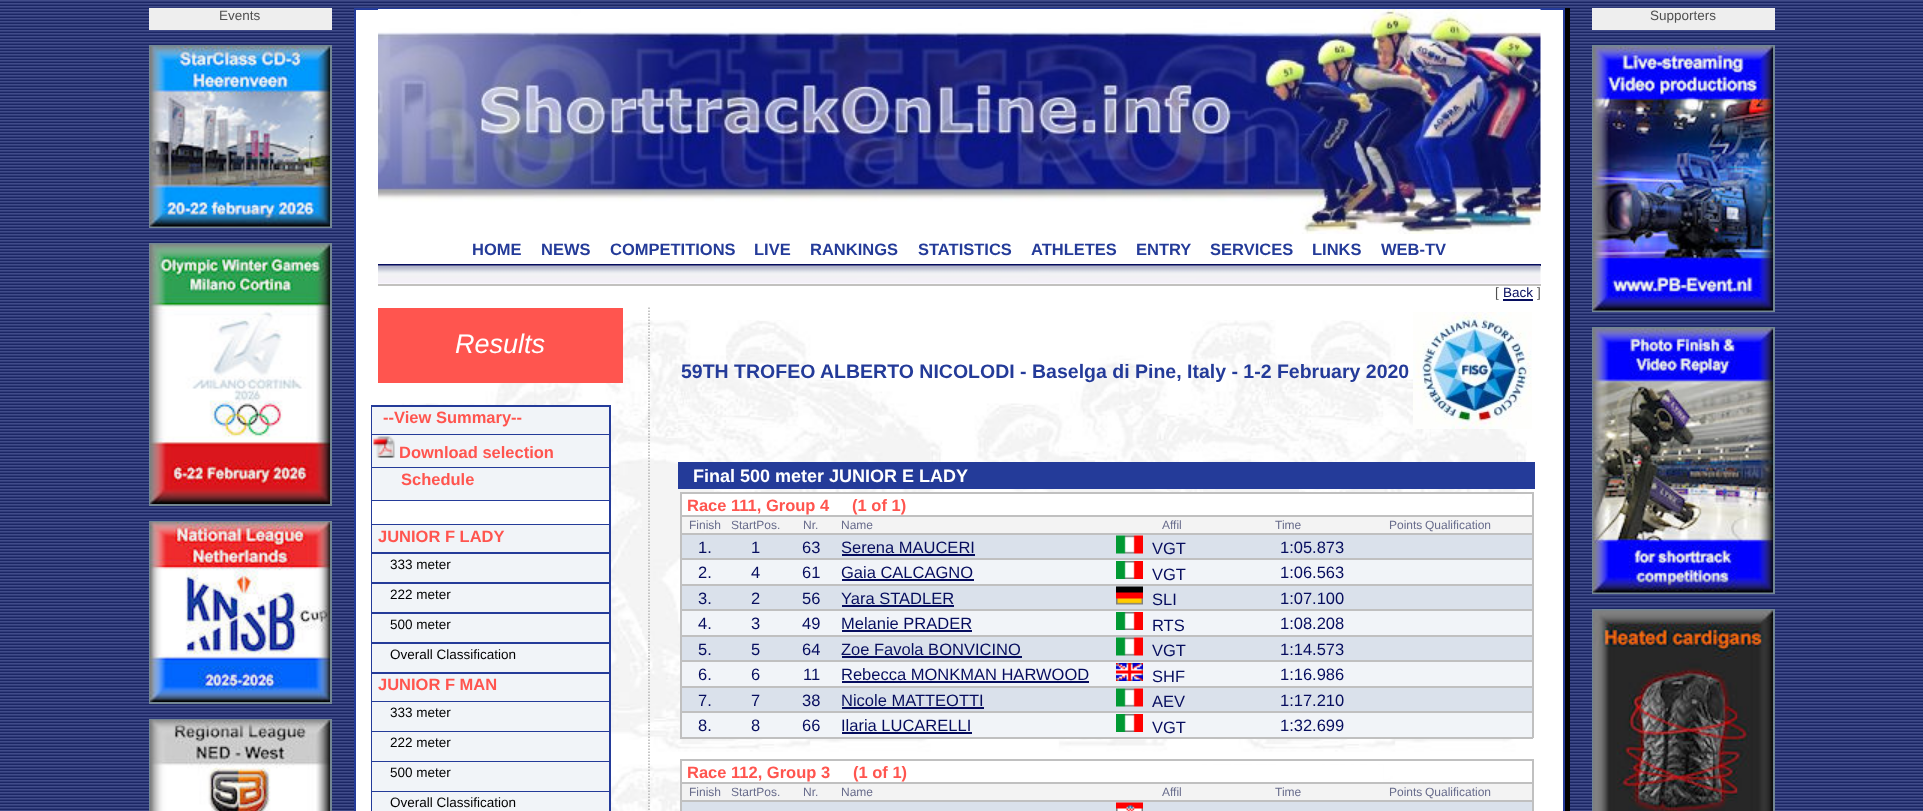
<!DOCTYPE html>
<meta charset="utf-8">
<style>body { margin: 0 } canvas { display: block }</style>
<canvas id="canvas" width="1923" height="811"></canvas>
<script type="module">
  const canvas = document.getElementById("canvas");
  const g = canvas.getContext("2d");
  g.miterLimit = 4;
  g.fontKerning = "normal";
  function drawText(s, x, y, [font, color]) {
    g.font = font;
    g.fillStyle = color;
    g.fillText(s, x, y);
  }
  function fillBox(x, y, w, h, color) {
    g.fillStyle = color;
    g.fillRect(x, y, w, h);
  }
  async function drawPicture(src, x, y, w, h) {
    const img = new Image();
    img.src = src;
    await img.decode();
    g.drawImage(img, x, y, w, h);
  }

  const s1 = ["13.5px Liberation Sans", "#505050"];
  const s2 = ["bold 16.5px Liberation Sans", "#243B99"];
  const s3 = ["13.5px Liberation Sans", "#060D5E"];
  const s4 = ["italic 27px Liberation Sans", "#FFFFFF"];
  const s5 = ["bold 19.5px Liberation Sans", "#243B99"];
  const s6 = ["bold 18px Liberation Sans", "#FFFFFF"];
  const s7 = ["bold 16.5px Liberation Sans", "#FF554F"];
  const s8 = ["12px Liberation Sans", "#686C8C"];
  const s9 = ["16.5px Liberation Sans", "#060D5E"];
  const s10 = ["13.5px Liberation Sans", "#000000"];

  fillBox(0, 0, 1923, 811, "#FFFFFF");
  await drawPicture("pic1.png", 0, 0, 1923, 811);
  fillBox(149, 8, 183, 22, "#EEEEEE");
  drawText("Events", 219, 20, s1);
  g.strokeStyle = "#738793";
  g.lineWidth = 2;
  g.strokeRect(150, 46, 181, 181);
  await drawPicture("pic2.png", 150, 46, 180, 181);
  g.strokeRect(150, 244, 181, 261);
  await drawPicture("pic3.png", 150, 244, 180, 260);
  g.strokeRect(150, 522, 181, 181);
  await drawPicture("pic4.png", 150, 522, 180, 180);
  g.strokeRect(150, 720, 181, 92);
  await drawPicture("pic5.png", 150, 720, 180, 91);
  fillBox(354, 8, 2, 803, "#243B99");
  fillBox(356, 10, 1207, 801, "#FFFFFF");
  fillBox(356, 8, 1207, 2, "#243B99");
  fillBox(1563, 8, 2, 803, "#243B99");
  fillBox(1565, 8, 5, 803, "#000000");
  fillBox(1592, 8, 183, 22, "#EEEEEE");
  drawText("Supporters", 1650, 20, s1);
  g.strokeRect(1593, 46, 181, 265);
  await drawPicture("pic6.png", 1593, 46, 180, 265);
  g.strokeRect(1593, 328, 181, 265);
  await drawPicture("pic7.png", 1593, 328, 180, 265);
  g.strokeRect(1593, 610, 181, 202);
  await drawPicture("pic8.png", 1593, 610, 180, 201);
  await drawPicture("pic9.png", 378, 9, 1163, 225);
  drawText("HOME", 472, 255, s2);
  drawText("NEWS", 541, 255, s2);
  drawText("COMPETITIONS", 610, 255, s2);
  drawText("LIVE", 754, 255, s2);
  drawText("RANKINGS", 810, 255, s2);
  drawText("STATISTICS", 918, 255, s2);
  drawText("ATHLETES", 1031, 255, s2);
  drawText("ENTRY", 1136, 255, s2);
  drawText("SERVICES", 1210, 255, s2);
  drawText("LINKS", 1312, 255, s2);
  drawText("WEB-TV", 1381, 255, s2);
  fillBox(378, 264, 1163, 2, "#060D5E");
  fillBox(378, 284, 1163, 2, "#C2C1BF");
  await drawPicture("pic10.png", 378, 265, 1163, 19);
  drawText("[", 1495, 297, s1);
  drawText("Back", 1503, 297, s3);
  fillBox(1503, 299, 30, 2, "#060D5E");
  drawText("]", 1537, 297, s1);
  await drawPicture("pic11.png", 392, 320, 1135, 491);
  fillBox(378, 308, 245, 75, "#FF554F");
  drawText("Results", 455, 353, s4);
  g.beginPath();
  g.moveTo(649, 307.5);
  g.lineTo(649, 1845);
  g.strokeStyle = "#B5B5B5";
  g.lineWidth = 1.5;
  g.setLineDash([1.5, 1.5]);
  g.stroke();
  drawText("59TH TROFEO ALBERTO NICOLODI - Baselga di Pine, Italy - 1-2 February 2020", 681, 378, s5);
  await drawPicture("pic12.png", 1413, 312, 119, 117);
  fillBox(678, 462, 857, 27, "#243B99");
  drawText("Final 500 meter JUNIOR E LADY", 693, 482, s6);
  fillBox(680, 492, 853, 2, "#C0C0C0");
  fillBox(1532, 492, 2, 246, "#C0C0C0");
  fillBox(680, 737, 853, 2, "#C0C0C0");
  fillBox(680, 492, 2, 246, "#C0C0C0");
  fillBox(682, 494, 835, 21, "#FFFFFF");
  drawText("Race 111, Group 4     (1 of 1)", 687, 511, s7);
  fillBox(707, 517, 825, 16, "#F3F3F3");
  fillBox(680, 515, 853, 2, "#C0C0C0");
  fillBox(680, 533, 853, 2, "#C0C0C0");
  drawText("Finish", 689, 529, s8);
  drawText("StartPos.", 731, 529, s8);
  drawText("Nr.", 803, 529, s8);
  drawText("Name", 841, 529, s8);
  drawText("Affil", 1162, 529, s8);
  drawText("Time", 1275, 529, s8);
  drawText("Points", 1389, 529, s8);
  drawText("Qualification", 1425, 529, s8);
  fillBox(682, 535, 850, 23, "#DAE1EB");
  drawText("1.", 698, 553, s9);
  drawText("1", 751, 553, s9);
  drawText("63", 802, 553, s9);
  drawText("Serena MAUCERI", 841, 553, s9);
  fillBox(842, 554, 133, 2, "#060D5E");
  await drawPicture("pic13.png", 1116, 535, 27, 19);
  drawText("VGT", 1152, 554, s9);
  drawText("1:05.873", 1280, 553, s9);
  fillBox(682, 560, 850, 24, "#F1F4F8");
  fillBox(680, 558, 853, 2, "#C0C0C0");
  drawText("2.", 698, 578, s9);
  drawText("4", 751, 578, s9);
  drawText("61", 802, 578, s9);
  drawText("Gaia CALCAGNO", 841, 578, s9);
  fillBox(842, 579, 132, 2, "#060D5E");
  await drawPicture("pic14.png", 1116, 561, 27, 18);
  drawText("VGT", 1152, 580, s9);
  drawText("1:06.563", 1280, 578, s9);
  fillBox(682, 586, 850, 23, "#DAE1EB");
  fillBox(680, 584, 853, 2, "#C0C0C0");
  drawText("3.", 698, 604, s9);
  drawText("2", 751, 604, s9);
  drawText("56", 802, 604, s9);
  drawText("Yara STADLER", 841, 604, s9);
  fillBox(842, 605, 112, 2, "#060D5E");
  await drawPicture("pic15.png", 1116, 586, 27, 19);
  drawText("SLI", 1152, 605, s9);
  drawText("1:07.100", 1280, 604, s9);
  fillBox(682, 611, 850, 24, "#F1F4F8");
  fillBox(680, 609, 853, 2, "#C0C0C0");
  drawText("4.", 698, 629, s9);
  drawText("3", 751, 629, s9);
  drawText("49", 802, 629, s9);
  drawText("Melanie PRADER", 841, 629, s9);
  fillBox(842, 630, 130, 2, "#060D5E");
  await drawPicture("pic14.png", 1116, 612, 27, 18);
  drawText("RTS", 1152, 631, s9);
  drawText("1:08.208", 1280, 629, s9);
  fillBox(682, 637, 850, 23, "#DAE1EB");
  fillBox(680, 635, 853, 2, "#C0C0C0");
  drawText("5.", 698, 655, s9);
  drawText("5", 751, 655, s9);
  drawText("64", 802, 655, s9);
  drawText("Zoe Favola BONVICINO", 841, 655, s9);
  fillBox(842, 656, 180, 2, "#060D5E");
  await drawPicture("pic13.png", 1116, 637, 27, 19);
  drawText("VGT", 1152, 656, s9);
  drawText("1:14.573", 1280, 655, s9);
  fillBox(682, 662, 850, 24, "#F1F4F8");
  fillBox(680, 660, 853, 2, "#C0C0C0");
  drawText("6.", 698, 680, s9);
  drawText("6", 751, 680, s9);
  drawText("11", 803, 680, s9);
  drawText("Rebecca MONKMAN HARWOOD", 841, 680, s9);
  fillBox(842, 681, 247, 2, "#060D5E");
  await drawPicture("pic16.png", 1116, 663, 27, 18);
  drawText("SHF", 1152, 682, s9);
  drawText("1:16.986", 1280, 680, s9);
  fillBox(682, 688, 850, 23, "#DAE1EB");
  fillBox(680, 686, 853, 2, "#C0C0C0");
  drawText("7.", 698, 706, s9);
  drawText("7", 751, 706, s9);
  drawText("38", 802, 706, s9);
  drawText("Nicole MATTEOTTI", 841, 706, s9);
  fillBox(842, 707, 142, 2, "#060D5E");
  await drawPicture("pic13.png", 1116, 688, 27, 19);
  drawText("AEV", 1152, 707, s9);
  drawText("1:17.210", 1280, 706, s9);
  fillBox(682, 713, 850, 24, "#F1F4F8");
  fillBox(680, 711, 853, 2, "#C0C0C0");
  drawText("8.", 698, 731, s9);
  drawText("8", 751, 731, s9);
  drawText("66", 802, 731, s9);
  drawText("Ilaria LUCARELLI", 841, 731, s9);
  fillBox(842, 732, 130, 2, "#060D5E");
  await drawPicture("pic14.png", 1116, 714, 27, 18);
  drawText("VGT", 1152, 733, s9);
  drawText("1:32.699", 1280, 731, s9);
  fillBox(680, 759, 853, 2, "#C0C0C0");
  fillBox(1532, 759, 2, 52, "#C0C0C0");
  fillBox(680, 759, 2, 52, "#C0C0C0");
  fillBox(682, 765, 701, 17, "#FFFFFF");
  drawText("Race 112, Group 3     (1 of 1)", 687, 778, s7);
  fillBox(682, 784, 850, 16, "#F3F3F3");
  fillBox(680, 782, 853, 2, "#C0C0C0");
  fillBox(680, 800, 853, 2, "#C0C0C0");
  drawText("Finish", 689, 796, s8);
  drawText("StartPos.", 731, 796, s8);
  drawText("Nr.", 803, 796, s8);
  drawText("Name", 841, 796, s8);
  drawText("Affil", 1162, 796, s8);
  drawText("Time", 1275, 796, s8);
  drawText("Points", 1389, 796, s8);
  drawText("Qualification", 1425, 796, s8);
  fillBox(682, 802, 850, 9, "#DAE1EB");
  await drawPicture("pic17.png", 1116, 802, 27, 9);
  fillBox(371, 405, 240, 406, "#243B99");
  fillBox(372, 407, 237, 27, "#F1F4F8");
  drawText("--View Summary--", 383, 423, s7);
  fillBox(372, 435, 237, 32, "#F1F4F8");
  await drawPicture("pic18.png", 373, 436, 22, 22);
  drawText("Download selection", 399, 458, s7);
  fillBox(372, 468, 237, 32, "#F1F4F8");
  drawText("Schedule", 401, 485, s7);
  fillBox(372, 501, 237, 23, "#FFFFFF");
  fillBox(372, 525, 237, 27, "#F1F4F8");
  drawText("JUNIOR F LADY", 378, 542, s7);
  fillBox(372, 554, 237, 28, "#F1F4F8");
  drawText("333 meter", 390, 569, s10);
  fillBox(372, 584, 237, 28, "#F1F4F8");
  drawText("222 meter", 390, 599, s10);
  fillBox(372, 614, 237, 28, "#F1F4F8");
  drawText("500 meter", 390, 629, s10);
  fillBox(372, 644, 237, 28, "#F1F4F8");
  drawText("Overall Classification", 390, 659, s10);
  fillBox(372, 674, 237, 27, "#F1F4F8");
  drawText("JUNIOR F MAN", 378, 690, s7);
  fillBox(372, 702, 237, 29, "#F1F4F8");
  drawText("333 meter", 390, 717, s10);
  fillBox(372, 732, 237, 29, "#F1F4F8");
  drawText("222 meter", 390, 747, s10);
  fillBox(372, 762, 237, 29, "#F1F4F8");
  drawText("500 meter", 390, 777, s10);
  fillBox(372, 792, 237, 19, "#F1F4F8");
  drawText("Overall Classification", 390, 807, s10);
</script>
